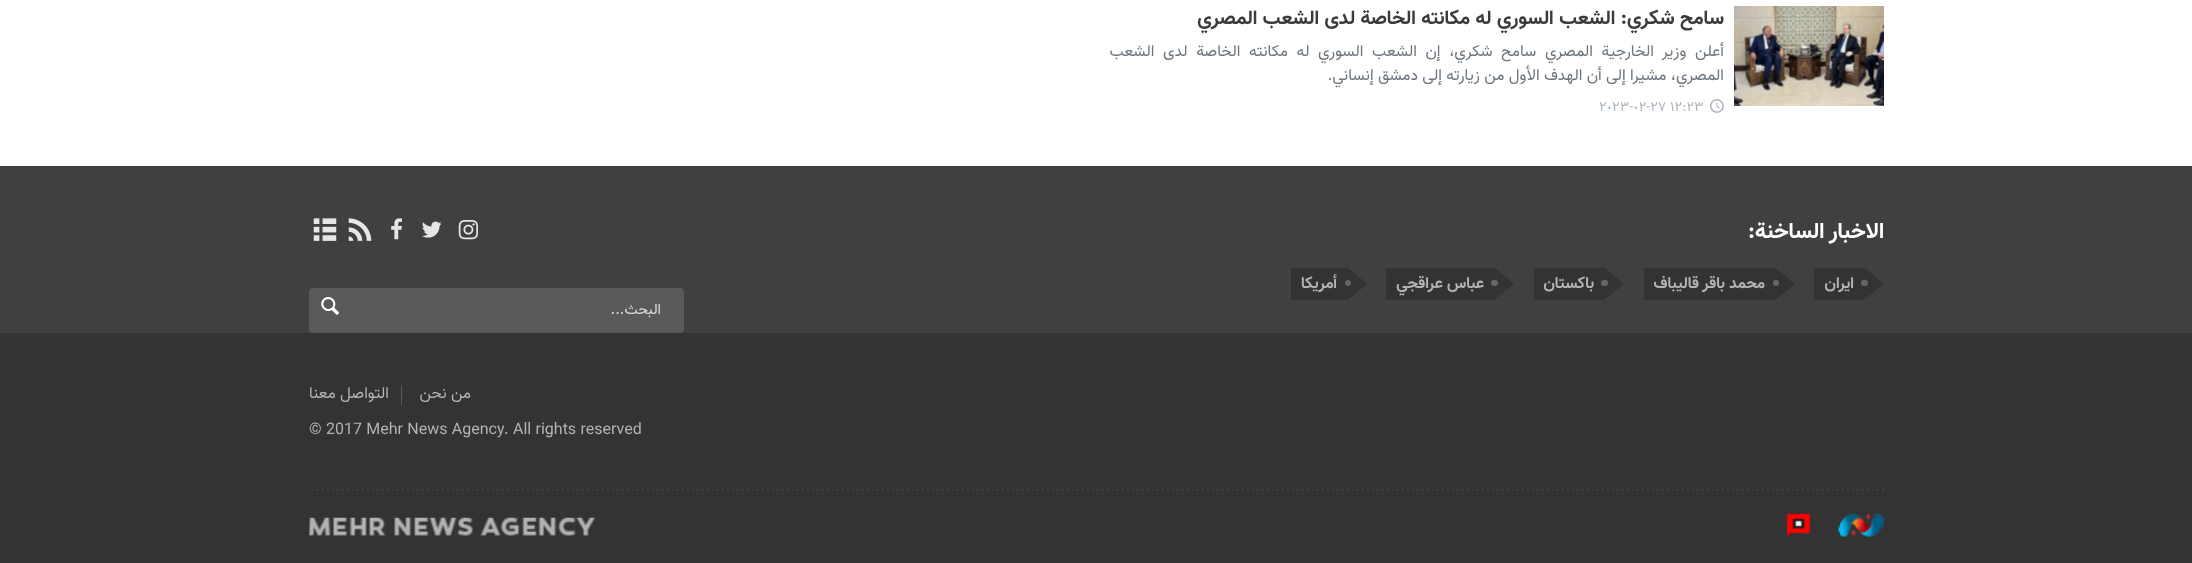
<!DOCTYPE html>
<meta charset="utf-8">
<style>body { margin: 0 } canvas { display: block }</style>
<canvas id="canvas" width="2192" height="563"></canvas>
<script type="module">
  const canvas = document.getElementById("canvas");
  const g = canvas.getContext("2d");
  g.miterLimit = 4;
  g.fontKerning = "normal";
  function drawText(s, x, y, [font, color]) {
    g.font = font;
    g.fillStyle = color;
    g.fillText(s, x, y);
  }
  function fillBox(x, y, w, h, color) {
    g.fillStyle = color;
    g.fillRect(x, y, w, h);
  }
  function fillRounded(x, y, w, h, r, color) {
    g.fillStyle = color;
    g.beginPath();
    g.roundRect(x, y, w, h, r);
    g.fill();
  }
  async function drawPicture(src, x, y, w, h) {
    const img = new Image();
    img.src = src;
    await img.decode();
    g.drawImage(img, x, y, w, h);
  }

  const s1 = ["bold 20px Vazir", "#3B3B3B"];
  const s2 = ["16px Vazir", "#6C757D"];
  const s3 = ["14px Vazir", "#ADB5BD"];
  const s4 = ["bold 22.5px Vazir", "#FFFFFF"];
  const s5 = ["bold 16px Vazir", "#B3B3B3"];
  const s6 = ["15px Vazir", "#DDDDDD"];
  const s7 = ["16px Vazir", "#B3B3B3"];

  fillBox(0, 0, 2192, 563, "#FFFFFF");
  await drawPicture("pic1.png", 1734, 6, 150, 100);
  g.direction = "rtl";
  drawText("سامح شكري: الشعب السوري له مكانته الخاصة لدى الشعب المصري", 1724, 24, s1);
  g.wordSpacing = "4.25px";
  drawText("أعلن وزير الخارجية المصري سامح شكري، إن الشعب السوري له مكانته الخاصة لدى الشعب", 1724, 56, s2);
  g.wordSpacing = "0px";
  drawText("المصري، مشيرا إلى أن الهدف الأول من زيارته إلى دمشق إنساني.", 1724, 80, s2);
  await drawPicture("pic2.png", 1710, 99, 14, 14);
  g.direction = "ltr";
  drawText("١٢:٢٣ ٢٧-٠٢-٢٠٢٣", 1599, 111, s3);
  fillBox(0, 166, 2192, 167, "#404040");
  g.direction = "rtl";
  drawText("الاخبار الساخنة:", 1884, 238, s4);
  fillBox(1814, 268, 50, 32, "#333333");
  g.beginPath();
  g.moveTo(1864, 300);
  g.lineTo(1864, 267.5);
  g.lineTo(1884, 284);
  g.closePath();
  g.fill();
  drawText("ايران", 1854, 288, s5);
  fillRounded(1861, 280, 7, 6, 3, "#666666");
  fillBox(1644, 268, 131, 32, "#333333");
  g.beginPath();
  g.moveTo(1775, 300);
  g.lineTo(1775, 267.5);
  g.lineTo(1795, 284);
  g.closePath();
  g.fill();
  drawText("محمد باقر قاليباف", 1765, 288, s5);
  g.fillStyle = "#666666";
  g.beginPath();
  g.arc(1776, 283, 3, 0, Math.PI * 2);
  g.fill();
  fillBox(1534, 268, 70, 32, "#333333");
  g.beginPath();
  g.moveTo(1604, 300);
  g.lineTo(1604, 267.5);
  g.lineTo(1624, 284);
  g.closePath();
  g.fill();
  drawText("باكستان", 1594, 288, s5);
  fillRounded(1601, 280, 7, 6, 3, "#666666");
  fillBox(1386, 268, 108, 32, "#333333");
  g.beginPath();
  g.moveTo(1494, 300);
  g.lineTo(1494, 267.5);
  g.lineTo(1514, 284);
  g.closePath();
  g.fill();
  drawText("عباس عراقجي", 1484, 288, s5);
  fillRounded(1491, 280, 7, 6, 3, "#666666");
  fillBox(1291, 268, 57, 32, "#333333");
  g.beginPath();
  g.moveTo(1347.5, 300);
  g.lineTo(1347.5, 267.5);
  g.lineTo(1367.5, 284);
  g.closePath();
  g.fill();
  drawText("أمريكا", 1337, 288, s5);
  g.fillStyle = "#666666";
  g.beginPath();
  g.arc(1348, 283, 3, 0, Math.PI * 2);
  g.fill();
  await drawPicture("pic3.png", 458, 220, 21, 20);
  await drawPicture("pic4.png", 422, 221, 20, 17);
  await drawPicture("pic5.png", 391, 218, 12, 22);
  await drawPicture("pic6.png", 348, 218, 24, 23);
  await drawPicture("pic7.png", 313, 218, 24, 23);
  fillRounded(309, 288, 375, 45, 4, "#595959");
  drawText("البحث...", 661, 314, s6);
  await drawPicture("pic8.png", 321, 297, 18, 18);
  fillBox(0, 333, 2192, 230, "#333333");
  drawText("من نحن", 471, 398, s7);
  fillBox(401, 385, 1, 20, "#5A5A5A");
  drawText("التواصل معنا", 389, 398, s7);
  g.direction = "ltr";
  drawText("© 2017 Mehr News Agency. All rights reserved", 309, 434, s7);
  await drawPicture("pic9.png", 312, 488, 1572, 3);
  await drawPicture("pic10.png", 1838, 513, 46, 24);
  await drawPicture("pic11.png", 1786, 513, 25, 24);
  await drawPicture("pic12.png", 309, 517, 287, 19);
</script>
